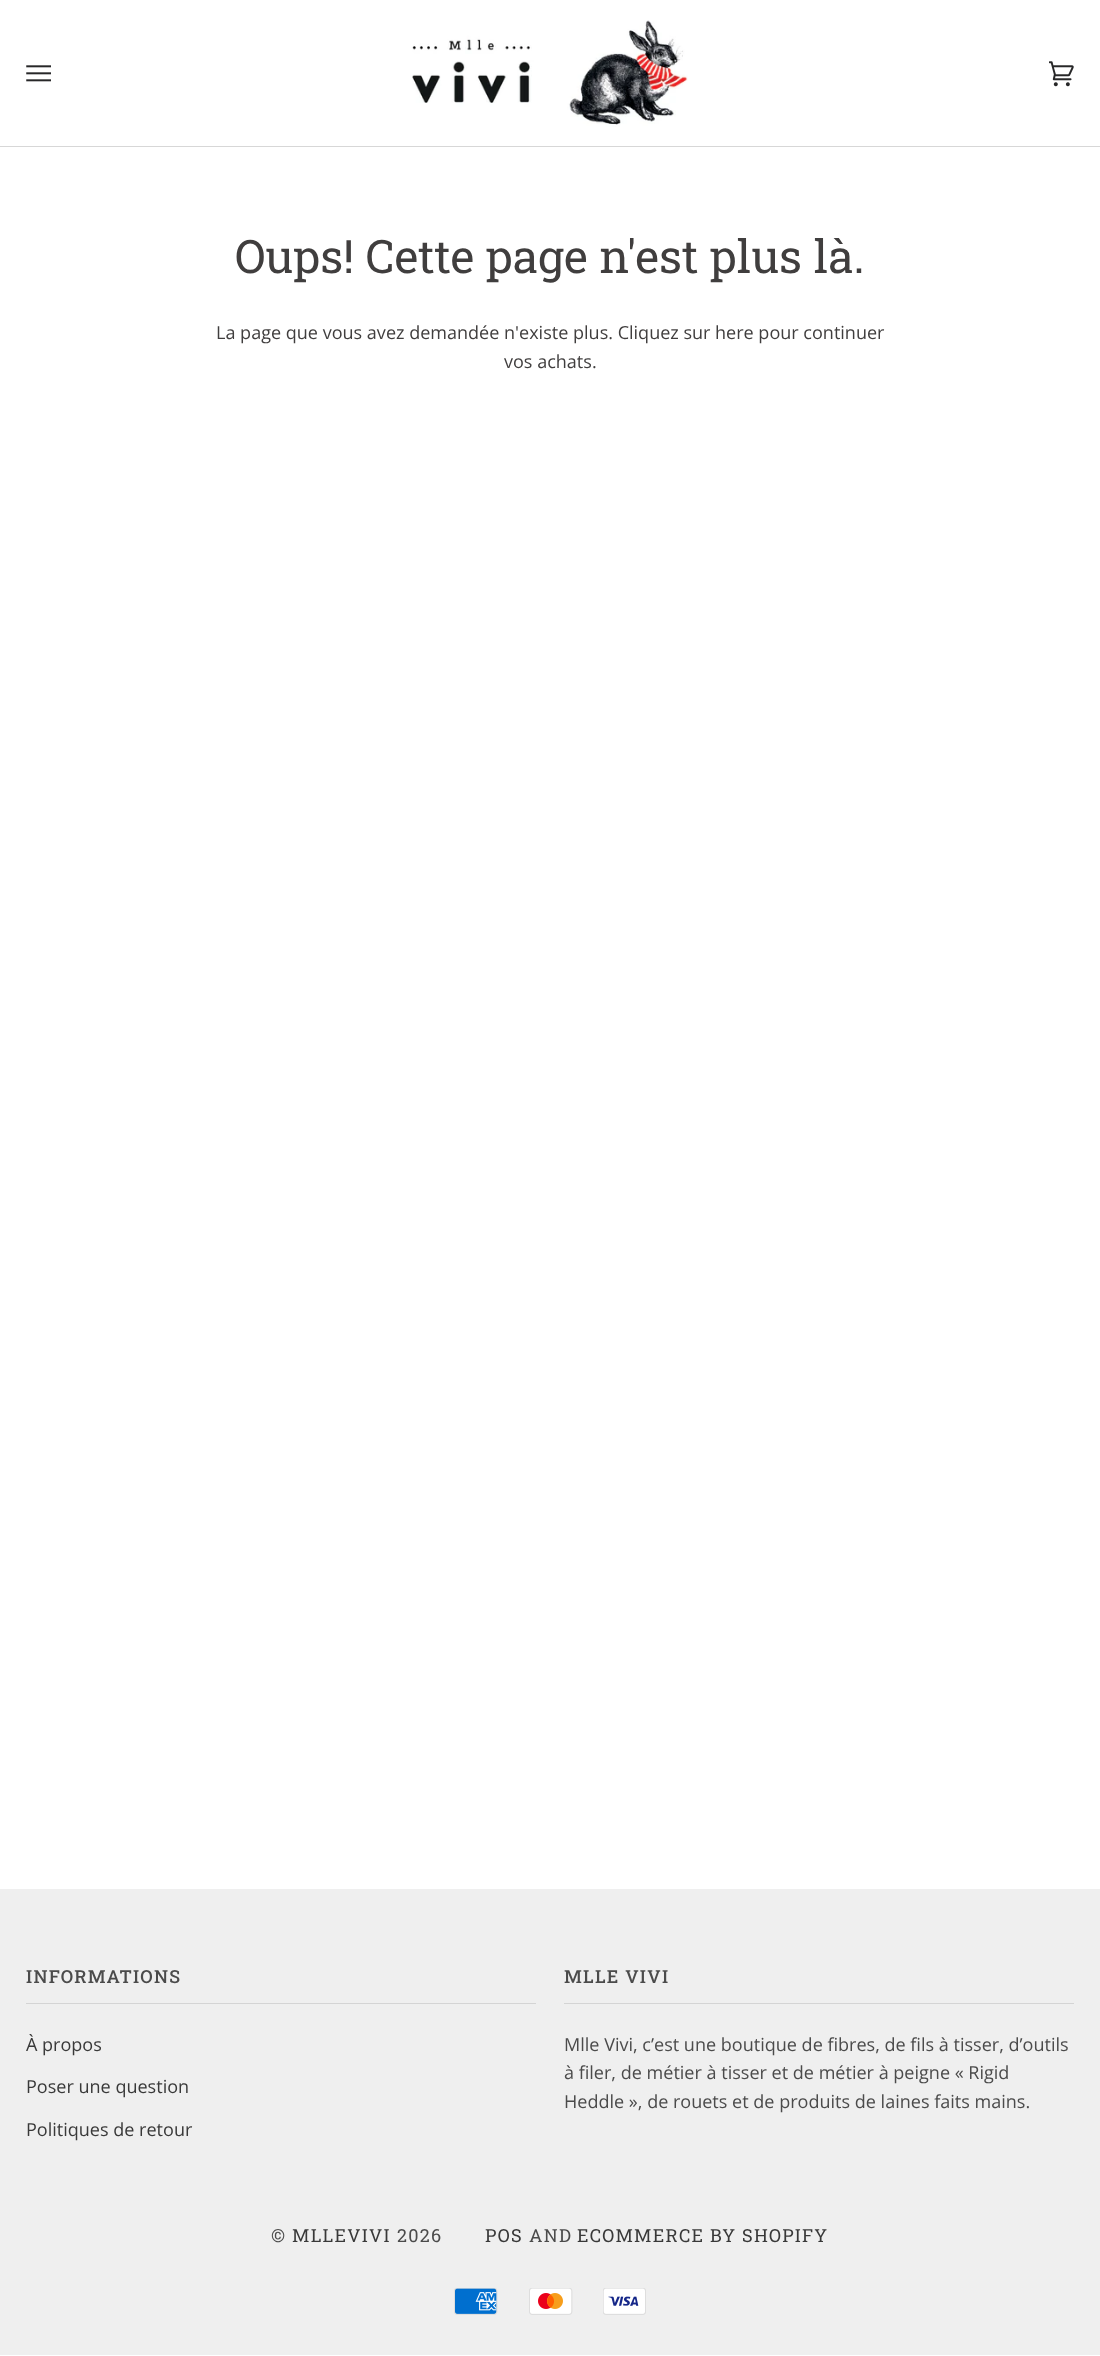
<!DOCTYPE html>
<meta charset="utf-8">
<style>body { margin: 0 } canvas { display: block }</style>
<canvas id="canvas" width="1100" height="2356"></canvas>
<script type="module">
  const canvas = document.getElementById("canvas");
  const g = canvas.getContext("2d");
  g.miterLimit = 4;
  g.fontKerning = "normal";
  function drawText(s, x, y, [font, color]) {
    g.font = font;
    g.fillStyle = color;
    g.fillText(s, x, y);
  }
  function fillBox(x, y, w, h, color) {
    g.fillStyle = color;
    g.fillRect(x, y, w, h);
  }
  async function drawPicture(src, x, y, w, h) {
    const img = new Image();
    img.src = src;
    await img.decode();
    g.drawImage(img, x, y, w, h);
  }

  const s1 = ["46px Roboto Slab", "#403E3E"];
  const s2 = ["18.05px Open Sans", "#403E3E"];
  const s3 = ["500 18px Roboto Slab", "#4B4B4B"];
  const s4 = ["18.05px Open Sans", "#393939"];
  const s5 = ["18.05px Open Sans", "#4B4B4B"];
  const s6 = ["18px Roboto Slab", "#4B4B4B"];
  const s7 = ["18px Roboto Slab", "#393939"];

  fillBox(0, 0, 1100, 2356, "#FFFFFF");
  fillBox(0, 146, 1100, 1, "#D7D7D7");
  await drawPicture("pic1.png", 26, 65, 25, 17);
  await drawPicture("pic2.png", 412, 20, 276, 107);
  await drawPicture("pic3.png", 1049, 61, 25, 26);
  drawText("Oups! Cette page n'est plus là.", 235, 273, s1);
  drawText("La page que vous avez demandée n'existe plus. Cliquez sur", 216, 339, s2);
  drawText("here pour continuer", 715, 339, s2);
  drawText("vos achats.", 504, 368, s2);
  fillBox(0, 1889, 1100, 466, "#EFEFEF");
  fillBox(26, 2003, 510, 1, "#D4D4D4");
  g.letterSpacing = "1.25px";
  drawText("INFORMATIONS", 26, 1983, s3);
  g.letterSpacing = "0px";
  drawText("À propos", 26, 2051, s4);
  drawText("Poser une question", 26, 2093, s4);
  drawText("Politiques de retour", 26, 2136, s4);
  fillBox(564, 2003, 510, 1, "#D4D4D4");
  g.letterSpacing = "1.25px";
  drawText("MLLE VIVI", 564, 1983, s3);
  g.letterSpacing = "0px";
  drawText("Mlle Vivi, c’est une boutique de fibres, de fils à tisser, d’outils", 564, 2051, s5);
  drawText("à filer, de métier à tisser et de métier à peigne « Rigid", 564, 2079, s5);
  drawText("Heddle », de rouets et de produits de laines faits mains.", 564, 2108, s5);
  g.letterSpacing = "1.25px";
  drawText("©", 271, 2242, s6);
  drawText("MLLEVIVI", 292, 2242, s7);
  drawText("2026", 397, 2242, s6);
  drawText("POS", 485, 2242, s7);
  drawText("AND", 529, 2242, s6);
  drawText("ECOMMERCE BY SHOPIFY", 577, 2242, s7);
  await drawPicture("pic4.png", 454, 2288, 44, 27);
  await drawPicture("pic5.png", 529, 2288, 44, 27);
  await drawPicture("pic6.png", 603, 2288, 43, 27);
</script>
